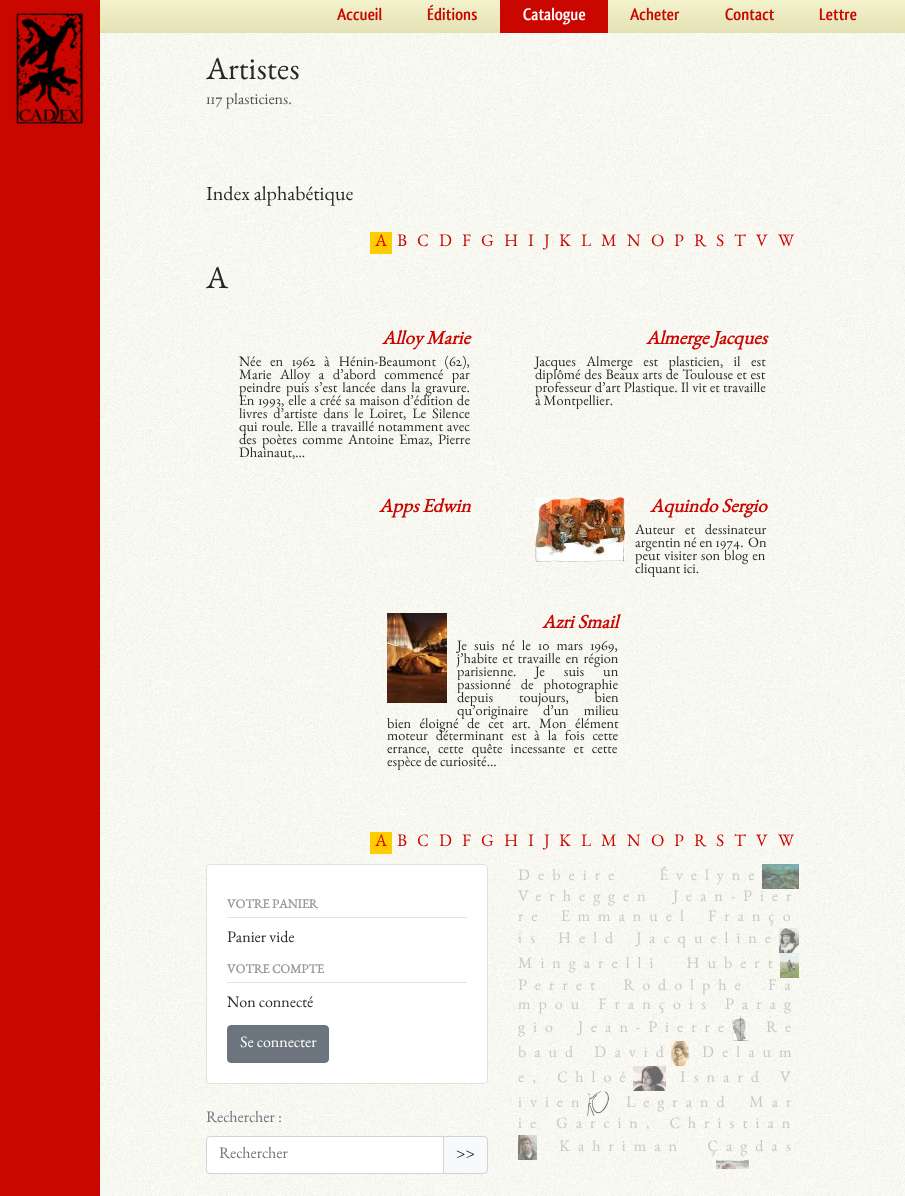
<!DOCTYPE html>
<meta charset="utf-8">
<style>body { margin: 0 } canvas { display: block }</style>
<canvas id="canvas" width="905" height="1196"></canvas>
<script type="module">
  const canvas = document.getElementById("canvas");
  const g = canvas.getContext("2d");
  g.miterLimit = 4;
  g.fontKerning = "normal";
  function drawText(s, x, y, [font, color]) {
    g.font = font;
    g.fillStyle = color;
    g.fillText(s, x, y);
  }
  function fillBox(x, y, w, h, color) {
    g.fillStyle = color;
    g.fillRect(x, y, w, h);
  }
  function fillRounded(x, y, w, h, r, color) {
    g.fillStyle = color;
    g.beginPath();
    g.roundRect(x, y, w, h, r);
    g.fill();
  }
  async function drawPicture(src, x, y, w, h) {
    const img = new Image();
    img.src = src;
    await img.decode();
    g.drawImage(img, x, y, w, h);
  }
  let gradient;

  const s1 = ["bold 17.5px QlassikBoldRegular", "#CA0600"];
  const s2 = ["bold 17.5px QlassikBoldRegular", "#FFFFFF"];
  const s3 = ["32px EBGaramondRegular", "#282828"];
  const s4 = ["16px EBGaramondRegular", "#525250"];
  const s5 = ["20px EBGaramondRegular", "#282828"];
  const s6 = ["17.5px EBGaramondRegular", "#CA0600"];
  const s7 = ["italic bold 19.25px EBGaramondRegular", "#CA0600"];
  const s8 = ["14.4px EBGaramondRegular", "#282828"];
  const s9 = ["bold 12.75px EBGaramondRegular", "#999999"];
  const s10 = ["16px EBGaramondRegular", "#282828"];
  const s11 = ["16px EBGaramondRegular", "#FFFFFF"];
  const s12 = ["16px EBGaramondRegular", "#6C757D"];
  const s13 = ["16px EBGaramondRegular", "#212529"];
  const s14 = ["16px EBGaramondRegular", "#C8C8C5"];

  fillBox(0, 0, 905, 1196, "#FFFFFF");
  await drawPicture("pic1.png", 100, 33, 805, 1163);
  fillBox(0, 0, 100, 1196, "#CA0600");
  await drawPicture("pic2.png", 15, 12, 69, 112);
  gradient = g.createLinearGradient(503, -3, 503, 33);
  gradient.addColorStop(0, "#F5F4CE");
  gradient.addColorStop(1, "#E3E1B4");
  g.fillStyle = gradient;
  g.fillRect(100, 0, 805, 33);
  drawText("Accueil", 337, 20, s1);
  drawText("Éditions", 427, 20, s1);
  fillBox(500, 0, 108, 33, "#CA0600");
  drawText("Catalogue", 523, 20, s2);
  drawText("Acheter", 630, 20, s1);
  drawText("Contact", 725, 20, s1);
  drawText("Lettre", 819, 20, s1);
  drawText("Artistes", 206, 79, s3);
  drawText("117 plasticiens.", 206, 104, s4);
  drawText("Index alphabétique", 206, 200, s5);
  fillBox(370, 232, 22, 22, "#FFCC00");
  drawText("A", 375, 246, s6);
  drawText("B", 397, 246, s6);
  drawText("C", 417, 246, s6);
  drawText("D", 439, 246, s6);
  drawText("F", 462, 246, s6);
  drawText("G", 481, 246, s6);
  drawText("H", 504, 246, s6);
  drawText("I", 528, 246, s6);
  drawText("J", 544, 246, s6);
  drawText("K", 559, 246, s6);
  drawText("L", 581, 246, s6);
  drawText("M", 601, 246, s6);
  drawText("N", 627, 246, s6);
  drawText("O", 651, 246, s6);
  drawText("P", 674, 246, s6);
  drawText("R", 694, 246, s6);
  drawText("S", 716, 246, s6);
  drawText("T", 734, 246, s6);
  drawText("V", 756, 246, s6);
  drawText("W", 778, 246, s6);
  drawText("A", 206, 288, s3);
  drawText("Alloy Marie", 382, 344, s7);
  g.wordSpacing = "5.75px";
  drawText("Née en 1962 à Hénin-Beaumont (62),", 239, 366, s8);
  g.wordSpacing = "5.5px";
  drawText("Marie Alloy a d’abord commencé par", 239, 379, s8);
  g.wordSpacing = "2.25px";
  drawText("peindre puis s’est lancée dans la gravure.", 239, 392, s8);
  g.wordSpacing = "1px";
  drawText("En 1993, elle a créé sa maison d’édition de", 239, 405, s8);
  g.wordSpacing = "3px";
  drawText("livres d’artiste dans le Loiret, Le Silence", 239, 418, s8);
  g.wordSpacing = "1px";
  drawText("qui roule. Elle a travaillé notamment avec", 239, 431, s8);
  g.wordSpacing = "2.5px";
  drawText("des poètes comme Antoine Emaz, Pierre", 239, 444, s8);
  g.wordSpacing = "0px";
  drawText("Dhainaut,...", 239, 457, s8);
  drawText("Almerge Jacques", 646, 344, s7);
  g.wordSpacing = "7.5px";
  drawText("Jacques Almerge est plasticien, il est", 535, 366, s8);
  g.wordSpacing = "0.75px";
  drawText("diplômé des Beaux arts de Toulouse et est", 535, 379, s8);
  g.wordSpacing = "0.25px";
  drawText("professeur d’art Plastique. Il vit et travaille", 535, 392, s8);
  g.wordSpacing = "0px";
  drawText("à Montpellier.", 535, 405, s8);
  drawText("Apps Edwin", 379, 512, s7);
  await drawPicture("pic3.png", 535, 497, 90, 65);
  drawText("Aquindo Sergio", 650, 512, s7);
  g.wordSpacing = "7px";
  drawText("Auteur et dessinateur", 635, 534, s8);
  g.wordSpacing = "0px";
  drawText("argentin né en 1974.", 635, 547, s8);
  drawText("On", 748, 547, s8);
  g.wordSpacing = "1px";
  drawText("peut visiter son blog en", 635, 560, s8);
  g.wordSpacing = "0px";
  drawText("cliquant ici.", 635, 573, s8);
  await drawPicture("pic4.png", 387, 613, 60, 90);
  drawText("Azri Smail", 542, 628, s7);
  g.wordSpacing = "4.25px";
  drawText("Je suis né le 10 mars 1969,", 457, 650, s8);
  g.wordSpacing = "2px";
  drawText("j’habite et travaille en région", 457, 663, s8);
  g.wordSpacing = "0px";
  drawText("parisienne.", 457, 676, s8);
  g.wordSpacing = "16px";
  drawText("Je suis un", 535, 676, s8);
  g.wordSpacing = "7px";
  drawText("passionné de photographie", 457, 689, s8);
  g.wordSpacing = "23px";
  drawText("depuis toujours, bien", 457, 702, s8);
  g.wordSpacing = "12px";
  drawText("qu’originaire d’un milieu", 457, 715, s8);
  g.wordSpacing = "5.5px";
  drawText("bien éloigné de cet art.", 387, 728, s8);
  drawText("Mon élément", 539, 728, s8);
  g.wordSpacing = "5px";
  drawText("moteur déterminant est à la fois cette", 387, 740, s8);
  g.wordSpacing = "5.25px";
  drawText("errance, cette quête incessante et cette", 387, 753, s8);
  g.wordSpacing = "0px";
  drawText("espèce de curiosité...", 387, 766, s8);
  fillBox(370, 832, 22, 22, "#FFCC00");
  drawText("A", 375, 846, s6);
  drawText("B", 397, 846, s6);
  drawText("C", 417, 846, s6);
  drawText("D", 439, 846, s6);
  drawText("F", 462, 846, s6);
  drawText("G", 481, 846, s6);
  drawText("H", 504, 846, s6);
  drawText("I", 528, 846, s6);
  drawText("J", 544, 846, s6);
  drawText("K", 559, 846, s6);
  drawText("L", 581, 846, s6);
  drawText("M", 601, 846, s6);
  drawText("N", 627, 846, s6);
  drawText("O", 651, 846, s6);
  drawText("P", 674, 846, s6);
  drawText("R", 694, 846, s6);
  drawText("S", 716, 846, s6);
  drawText("T", 734, 846, s6);
  drawText("V", 756, 846, s6);
  drawText("W", 778, 846, s6);
  fillRounded(206, 864, 282, 220, 4, "#FFFFFF");
  g.beginPath();
  g.roundRect(206.5, 864.5, 281, 219, 3.5);
  g.strokeStyle = "rgba(0, 0, 0, 0.12)";
  g.stroke();
  fillBox(227, 917, 240, 1, "#E0E2E0");
  drawText("VOTRE PANIER", 227, 908, s9);
  drawText("Panier vide", 227, 942, s10);
  fillBox(227, 982, 240, 1, "#E0E2E0");
  drawText("VOTRE COMPTE", 227, 973, s9);
  drawText("Non connecté", 227, 1007, s10);
  g.fillStyle = "#6C757D";
  g.beginPath();
  g.roundRect(227.5, 1025.5, 101, 37, 3.5);
  g.fill();
  g.strokeStyle = "#6C757D";
  g.stroke();
  drawText("Se connecter", 240, 1047, s11);
  drawText("Rechercher :", 206, 1122, s12);
  g.fillStyle = "#FFFFFF";
  g.beginPath();
  g.roundRect(206.5, 1136.5, 237, 37, [3.5, 0, 0, 3.5]);
  g.fill();
  g.strokeStyle = "#CED4DA";
  g.stroke();
  drawText("Rechercher", 219, 1158, s12);
  g.fillStyle = "#F8F9FA";
  g.beginPath();
  g.roundRect(443.5, 1136.5, 44, 37, [0, 3.5, 3.5, 0]);
  g.fill();
  g.stroke();
  drawText(">>", 456, 1158, s13);
  g.letterSpacing = "8px";
  g.wordSpacing = "26px";
  drawText("Debeire Évelyne", 518, 880, s14);
  await drawPicture("pic5.png", 762, 864, 37, 25);
  g.wordSpacing = "8px";
  drawText("Verheggen Jean-Pier", 518, 901, s14);
  g.wordSpacing = "0px";
  drawText("re", 518, 921, s14);
  g.wordSpacing = "5px";
  drawText("Emmanuel Franço", 561, 921, s14);
  g.wordSpacing = "0px";
  drawText("is", 518, 943, s14);
  g.wordSpacing = "4px";
  drawText("Held Jacqueline", 558, 943, s14);
  await drawPicture("pic6.png", 779, 928, 20, 25);
  g.wordSpacing = "14px";
  drawText("Mingarelli Hubert", 518, 968, s14);
  await drawPicture("pic7.png", 780, 953, 19, 25);
  g.wordSpacing = "9px";
  drawText("Perret Rodolphe", 518, 990, s14);
  g.wordSpacing = "0px";
  drawText("Fa", 768, 990, s14);
  drawText("mpou François", 518, 1009, s14);
  drawText("Parag", 725, 1009, s14);
  g.wordSpacing = "6px";
  drawText("gio Jean-Pierre", 518, 1032, s14);
  await drawPicture("pic8.png", 732, 1016, 17, 25);
  g.wordSpacing = "0px";
  drawText("Re", 766, 1032, s14);
  g.wordSpacing = "2px";
  drawText("baud David", 518, 1057, s14);
  await drawPicture("pic9.png", 671, 1041, 18, 25);
  g.wordSpacing = "0px";
  drawText("Delaum", 702, 1057, s14);
  g.wordSpacing = "2px";
  drawText("e, Chloé", 518, 1082, s14);
  await drawPicture("pic10.png", 633, 1066, 33, 25);
  drawText("Isnard V", 680, 1082, s14);
  g.wordSpacing = "0px";
  drawText("ivien", 518, 1107, s14);
  await drawPicture("pic11.png", 587, 1091, 22, 25);
  g.wordSpacing = "5.5px";
  drawText("Legrand Mar", 626, 1107, s14);
  g.wordSpacing = "0px";
  drawText("ie", 518, 1128, s14);
  g.wordSpacing = "1px";
  drawText("Garcin, Christian", 556, 1128, s14);
  await drawPicture("pic12.png", 518, 1135, 19, 25);
  g.wordSpacing = "11px";
  drawText("Kahriman Çagdas", 559, 1151, s14);
  await drawPicture("pic13.png", 716, 1160, 33, 9);
</script>
